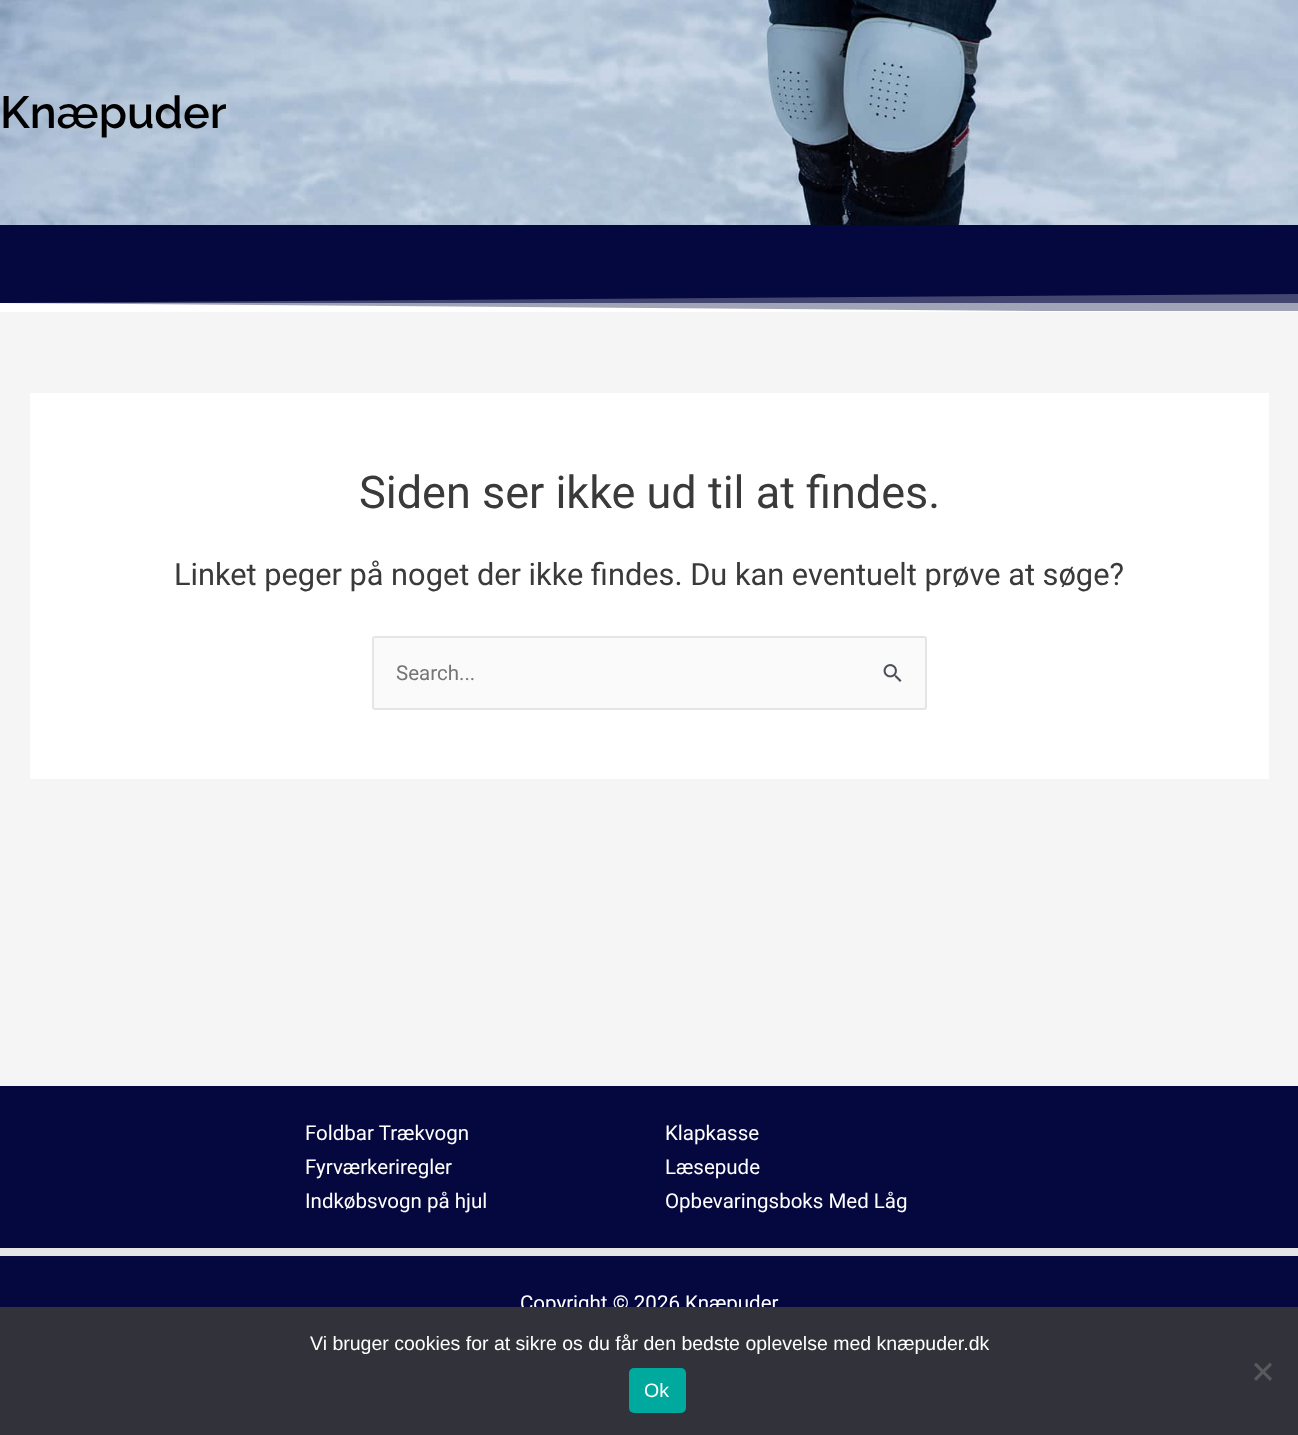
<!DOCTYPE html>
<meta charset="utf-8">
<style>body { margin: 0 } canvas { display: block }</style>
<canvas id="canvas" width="1298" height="1435"></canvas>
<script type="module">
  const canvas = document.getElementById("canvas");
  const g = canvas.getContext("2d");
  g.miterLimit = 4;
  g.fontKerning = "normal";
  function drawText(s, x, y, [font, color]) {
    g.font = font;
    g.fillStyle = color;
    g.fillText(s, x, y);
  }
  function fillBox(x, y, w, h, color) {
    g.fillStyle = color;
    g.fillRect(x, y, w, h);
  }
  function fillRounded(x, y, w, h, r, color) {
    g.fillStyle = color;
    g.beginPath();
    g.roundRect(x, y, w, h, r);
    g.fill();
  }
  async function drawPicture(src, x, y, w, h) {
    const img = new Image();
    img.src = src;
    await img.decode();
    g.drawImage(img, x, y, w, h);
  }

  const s1 = ["600 45px Raleway", "#000000"];
  const s2 = ["45px Roboto", "#3A3A3A"];
  const s3 = ["30.75px Roboto", "#3A3A3A"];
  const s4 = ["20.5px Roboto", "#757575"];
  const s5 = ["20.5px Roboto", "#FFFFFF"];
  const s6 = ["19.5px Liberation Sans", "#FFFFFF"];

  fillBox(0, 0, 1298, 1435, "#F5F5F5");
  fillBox(1048, 311, 250, 1, "#FAFAFA");
  await drawPicture("pic1.png", 0, 0, 1298, 225);
  drawText("Knæpuder", 0, 128, s1);
  fillBox(0, 225, 1298, 78, "#05083E");
  fillBox(0, 303, 1298, 8, "#82849F");
  g.save();
  g.beginPath();
  g.rect(0, 293, 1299, 19);
  g.clip();
  g.fillStyle = "#FFFFFF";
  g.beginPath();
  g.moveTo(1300, 313);
  g.lineTo(-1, 313);
  g.lineTo(-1, 303);
  g.closePath();
  g.fill();
  g.fillStyle = "rgba(255, 255, 255, 0.25)";
  g.beginPath();
  g.moveTo(-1, 313);
  g.lineTo(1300, 313);
  g.lineTo(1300, 294);
  g.lineTo(-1, 303);
  g.closePath();
  g.fill();
  g.restore();
  fillBox(30, 393, 1239, 386, "#FFFFFF");
  drawText("Siden ser ikke ud til at findes.", 359, 508, s2);
  drawText("Linket peger på noget der ikke findes. Du kan eventuelt prøve at søge?", 174, 585, s3);
  g.fillStyle = "#FAFAFA";
  g.beginPath();
  g.roundRect(373, 637, 553, 72, 2);
  g.fill();
  g.strokeStyle = "#E5E5E5";
  g.lineWidth = 2;
  g.stroke();
  drawText("Search...", 396, 680, s4);
  await drawPicture("pic2.png", 883, 664, 19, 18);
  fillBox(0, 1086, 1298, 162, "#05083E");
  drawText("Foldbar Trækvogn", 305, 1140, s5);
  drawText("Fyrværkeriregler", 305, 1174, s5);
  drawText("Indkøbsvogn på hjul", 305, 1208, s5);
  drawText("Klapkasse", 665, 1140, s5);
  drawText("Læsepude", 665, 1174, s5);
  drawText("Opbevaringsboks Med Låg", 665, 1208, s5);
  fillBox(0, 1256, 1298, 51, "#05083E");
  fillBox(0, 1248, 1298, 8, "#E5E5E5");
  drawText("Copyright © 2026 Knæpuder", 520, 1310, s5);
  fillBox(0, 1307, 1298, 128, "#32323A");
  drawText("Vi bruger cookies for at sikre os du får den bedste oplevelse med knæpuder.dk", 310, 1350, s6);
  g.fillStyle = "#59595D";
  g.beginPath();
  g.moveTo(1270, 1362.5);
  g.lineTo(1272, 1365);
  g.lineTo(1256, 1381);
  g.lineTo(1254, 1378.5);
  g.closePath();
  g.fill();
  g.beginPath();
  g.moveTo(1254, 1365);
  g.lineTo(1256, 1362.5);
  g.lineTo(1272, 1378.5);
  g.lineTo(1270, 1381);
  g.closePath();
  g.fill();
  fillRounded(629, 1368, 57, 45, 5, "#00A99D");
  drawText("Ok", 644, 1397, s6);
</script>
